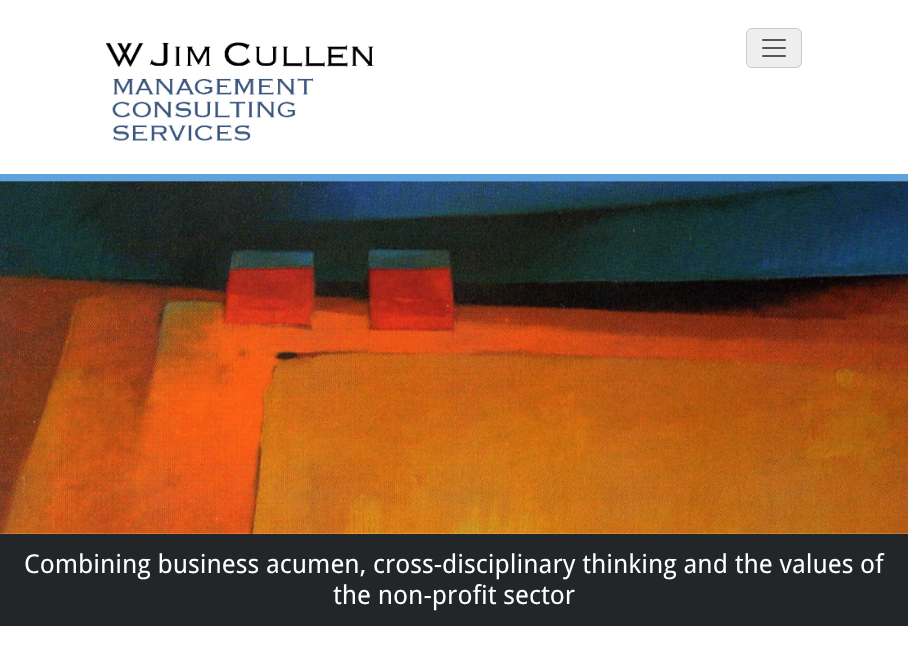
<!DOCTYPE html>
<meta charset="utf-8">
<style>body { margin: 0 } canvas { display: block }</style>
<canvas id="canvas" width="908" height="657"></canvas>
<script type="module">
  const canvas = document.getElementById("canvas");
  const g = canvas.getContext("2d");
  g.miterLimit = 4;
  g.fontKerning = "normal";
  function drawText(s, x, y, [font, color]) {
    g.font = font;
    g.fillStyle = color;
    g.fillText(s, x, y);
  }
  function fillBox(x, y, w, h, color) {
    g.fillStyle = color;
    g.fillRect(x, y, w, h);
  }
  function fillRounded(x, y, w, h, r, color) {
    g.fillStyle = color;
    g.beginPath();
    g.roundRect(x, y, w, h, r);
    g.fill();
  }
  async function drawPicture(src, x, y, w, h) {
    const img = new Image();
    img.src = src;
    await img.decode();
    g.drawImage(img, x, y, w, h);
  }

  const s1 = ["26px Droid Sans", "#FFFFFF"];

  fillBox(0, 0, 908, 657, "#FFFFFF");
  g.save();
  g.beginPath();
  g.rect(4, 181, 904, 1);
  g.clip();
  g.fillStyle = "rgba(0, 0, 0, 0.04)";
  g.filter = "blur(1.5px)";
  g.beginPath();
  g.rect(4, 4, 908, 181);
  g.fill();
  g.filter = "none";
  g.restore();
  fillBox(0, 174, 908, 7, "#5CA2DF");
  await drawPicture("pic1.png", 106, 42, 268, 99);
  fillRounded(746, 28, 56, 40, 6, "#EEEEEE");
  g.beginPath();
  g.roundRect(746.5, 28.5, 55, 39, 5.5);
  g.strokeStyle = "rgba(0, 0, 0, 0.15)";
  g.stroke();
  await drawPicture("pic2.png", 762, 39, 24, 18);
  await drawPicture("pic3.png", 0, 181, 908, 353);
  fillBox(0, 534, 908, 92, "#222629");
  drawText("Combining business acumen, cross-disciplinary thinking and the values of", 24, 573, s1);
  drawText("the non-profit sector", 333, 604, s1);
</script>
